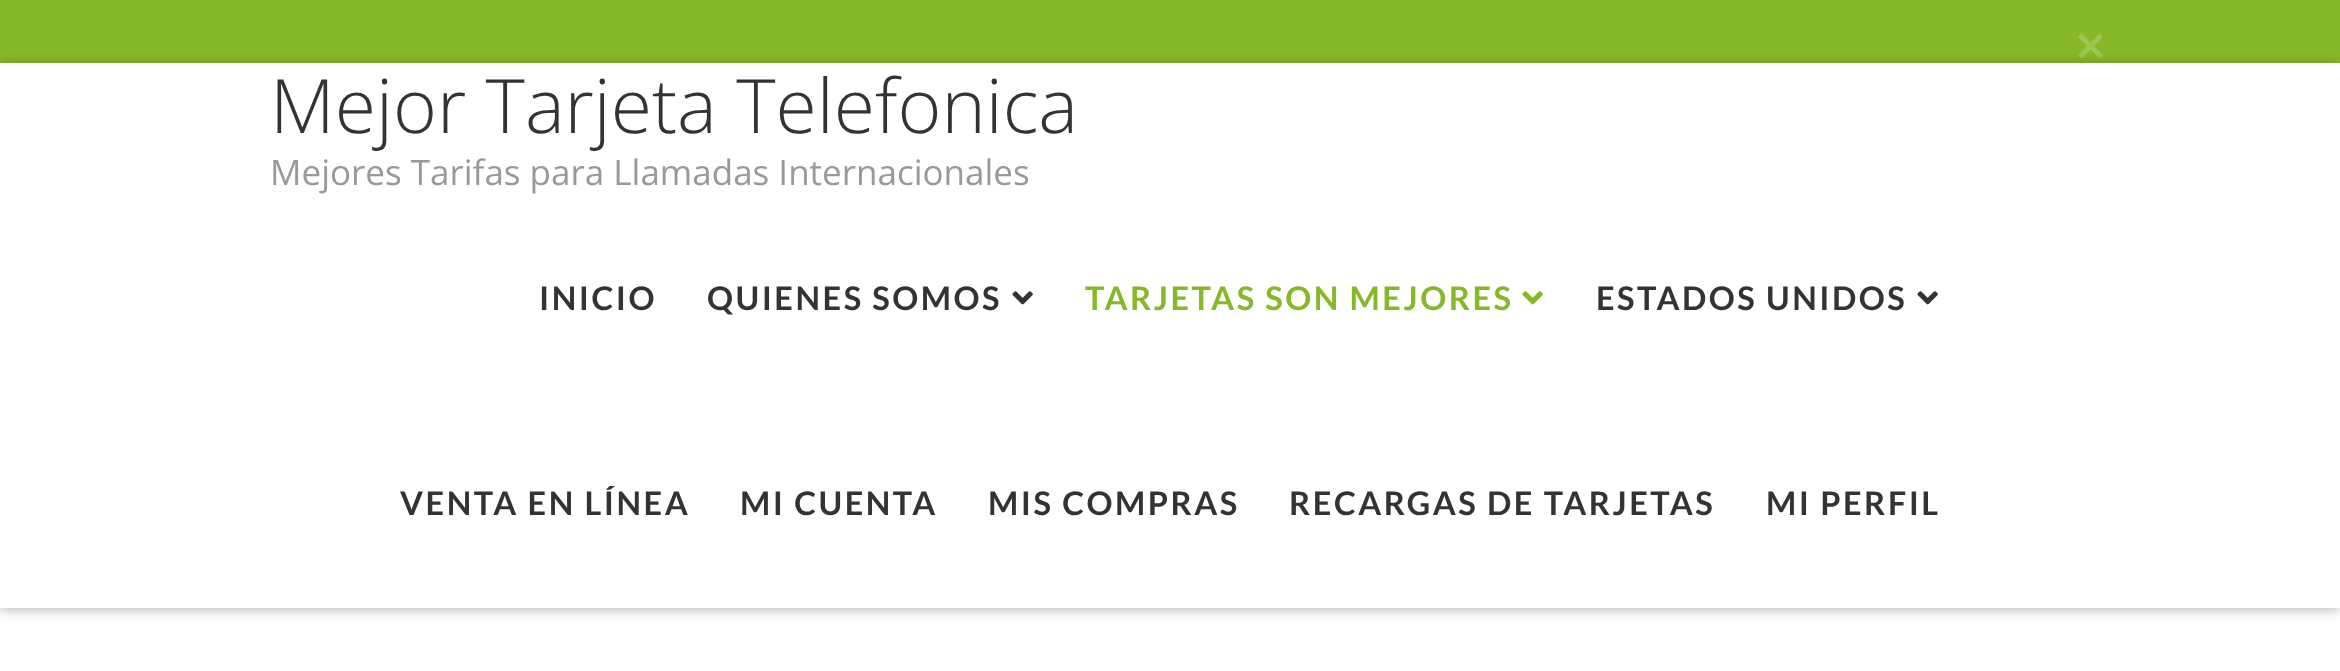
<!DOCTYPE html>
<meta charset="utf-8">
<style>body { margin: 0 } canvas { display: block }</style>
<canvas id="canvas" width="2340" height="671"></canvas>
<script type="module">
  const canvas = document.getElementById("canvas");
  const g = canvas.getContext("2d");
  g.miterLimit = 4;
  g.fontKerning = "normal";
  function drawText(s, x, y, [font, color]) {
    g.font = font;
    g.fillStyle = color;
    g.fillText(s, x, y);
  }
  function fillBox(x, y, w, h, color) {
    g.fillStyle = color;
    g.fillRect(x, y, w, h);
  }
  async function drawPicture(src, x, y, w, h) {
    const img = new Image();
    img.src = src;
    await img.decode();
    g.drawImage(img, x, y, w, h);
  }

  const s1 = ["bold 52px Open Sans", "#9EC652"];
  const s2 = ["300 75px Open Sans", "#333333"];
  const s3 = ["35px Open Sans", "#999999"];
  const s4 = ["bold 32.5px Lato", "#333333"];
  const s5 = ["bold 32.5px Lato", "#86B827"];

  fillBox(0, 0, 2340, 671, "#FFFFFF");
  fillBox(0, 0, 2340, 63, "#86B827");
  drawText("×", 2075, 65, s1);
  g.fillStyle = "rgba(0, 0, 0, 0.27)";
  g.filter = "blur(6px)";
  g.beginPath();
  g.rect(0, 65, 2340, 545);
  g.fill();
  g.filter = "none";
  fillBox(0, 63, 2340, 545, "#FFFFFF");
  drawText("Mejor Tarjeta Telefonica", 270, 133, s2);
  drawText("Mejores Tarifas para Llamadas Internacionales", 270, 185, s3);
  g.letterSpacing = "2.5px";
  drawText("INICIO", 539, 310, s4);
  drawText("QUIENES SOMOS", 707, 310, s4);
  await drawPicture("pic1.png", 1012, 291, 21, 14);
  drawText("TARJETAS SON MEJORES", 1085, 310, s5);
  await drawPicture("pic2.png", 1522, 291, 21, 14);
  drawText("ESTADOS UNIDOS", 1596, 310, s4);
  await drawPicture("pic1.png", 1917, 291, 21, 14);
  drawText("VENTA EN LÍNEA", 400, 515, s4);
  drawText("MI CUENTA", 740, 515, s4);
  drawText("MIS COMPRAS", 988, 515, s4);
  drawText("RECARGAS DE TARJETAS", 1289, 515, s4);
  drawText("MI PERFIL", 1766, 515, s4);
</script>
